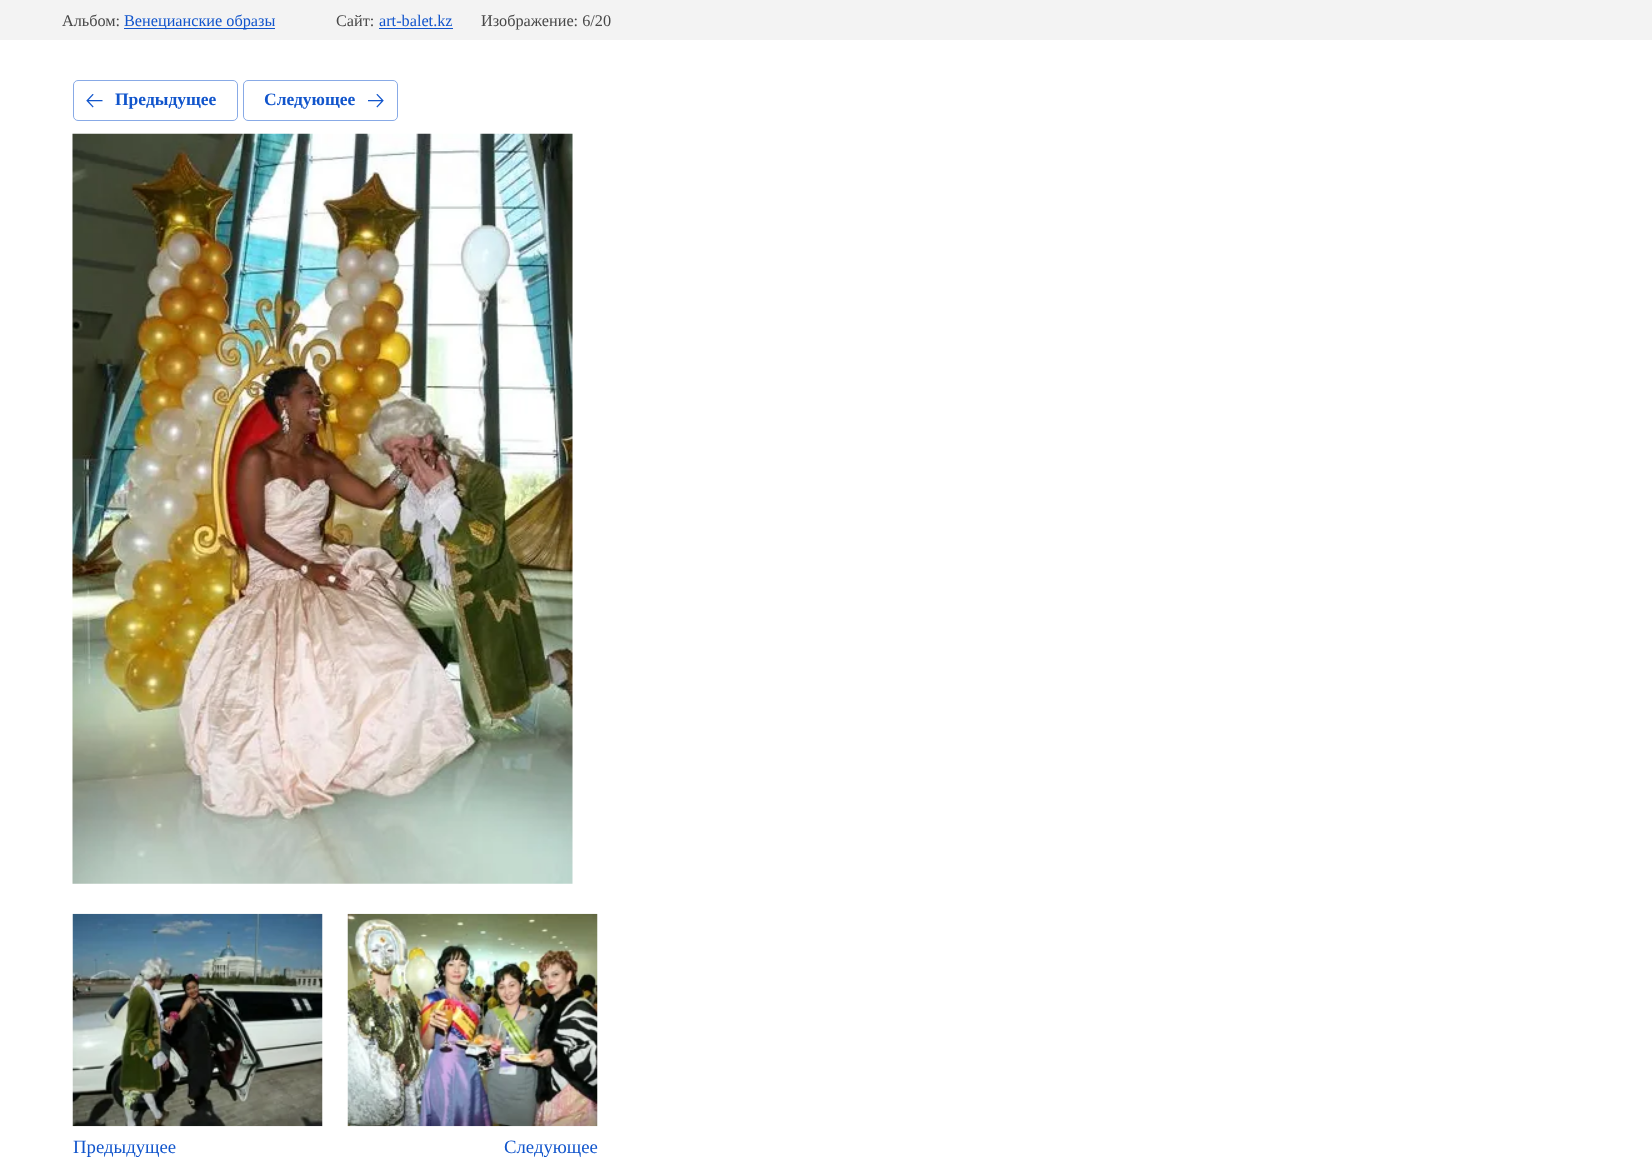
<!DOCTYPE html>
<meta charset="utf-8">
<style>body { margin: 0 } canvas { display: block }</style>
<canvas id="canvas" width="1652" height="1158"></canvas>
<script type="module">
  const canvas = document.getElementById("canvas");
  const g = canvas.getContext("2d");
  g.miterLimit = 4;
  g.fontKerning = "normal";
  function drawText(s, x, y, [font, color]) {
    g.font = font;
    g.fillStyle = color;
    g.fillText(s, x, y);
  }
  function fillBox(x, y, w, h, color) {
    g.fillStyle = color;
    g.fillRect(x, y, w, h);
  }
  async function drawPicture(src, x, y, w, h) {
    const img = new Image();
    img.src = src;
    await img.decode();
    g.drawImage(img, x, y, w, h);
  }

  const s1 = ["16.25px Liberation Serif", "#484848"];
  const s2 = ["16.25px Liberation Serif", "#1155CC"];
  const s3 = ["bold 17.5px Liberation Serif", "#1155CC"];
  const s4 = ["18.75px Liberation Serif", "#1155CC"];

  fillBox(0, 0, 1652, 1158, "#FFFFFF");
  fillBox(0, 0, 1652, 40, "#F3F3F3");
  drawText("Альбом:", 62, 26, s1);
  fillBox(124, 28, 151, 1, "#1155CC");
  drawText("Венецианские образы", 124, 26, s2);
  drawText("Сайт:", 336, 26, s1);
  drawText("art-balet.kz", 379, 26, s2);
  fillBox(379, 28, 74, 1, "#1155CC");
  drawText("Изображение: 6/20", 481, 26, s1);
  g.beginPath();
  g.roundRect(73.5, 80.5, 164, 40, 4.5);
  g.strokeStyle = "#88AAE6";
  g.stroke();
  await drawPicture("pic1.png", 86, 94, 17, 14);
  drawText("Предыдущее", 115, 105, s3);
  g.beginPath();
  g.roundRect(243.5, 80.5, 154, 40, 4.5);
  g.stroke();
  drawText("Следующее", 264, 105, s3);
  await drawPicture("pic2.png", 368, 94, 16, 14);
  await drawPicture("pic3.png", 72, 133, 501, 751);
  await drawPicture("pic4.png", 72, 913, 251, 214);
  drawText("Предыдущее", 73, 1153, s4);
  await drawPicture("pic5.png", 347, 913, 251, 214);
  drawText("Следующее", 504, 1153, s4);
</script>
